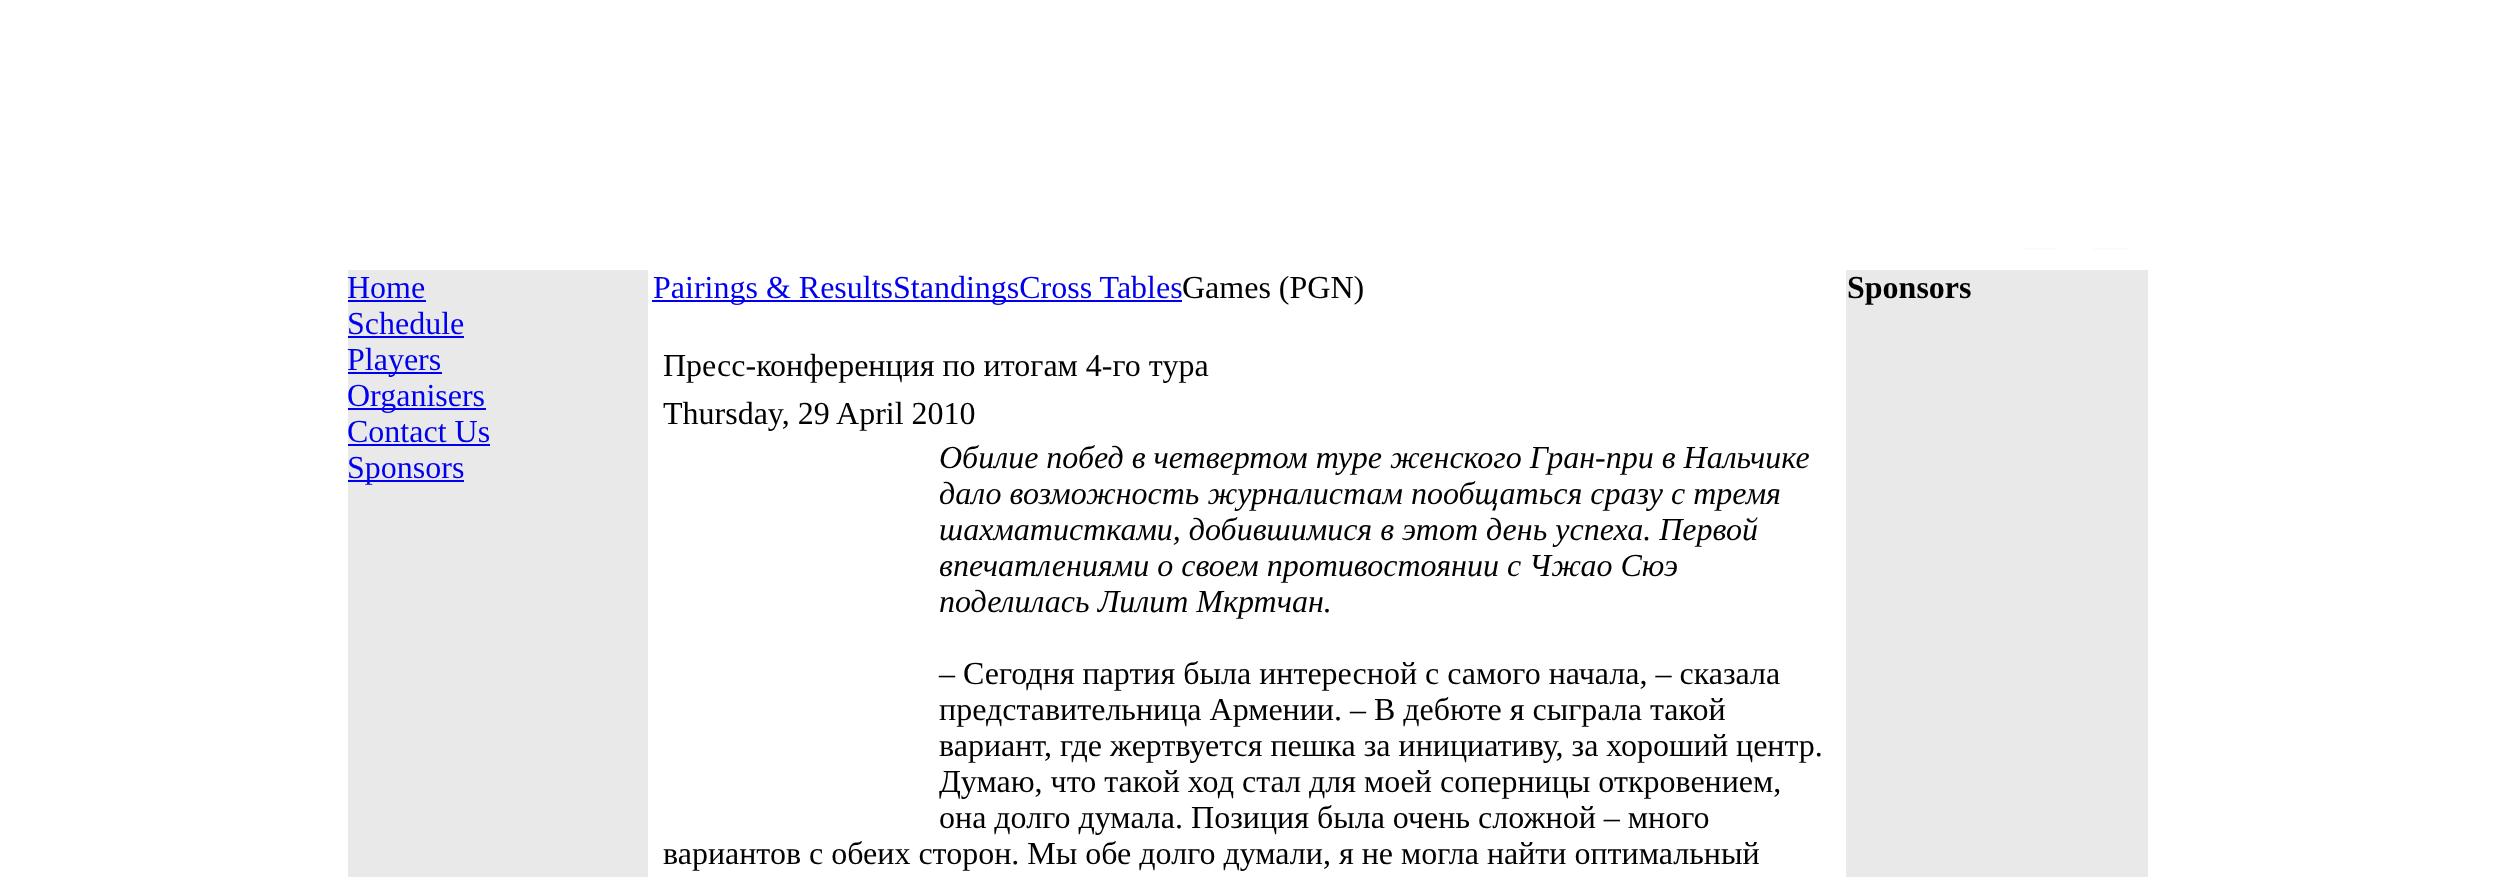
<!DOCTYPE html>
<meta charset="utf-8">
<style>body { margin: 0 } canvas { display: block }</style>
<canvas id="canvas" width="2494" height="877"></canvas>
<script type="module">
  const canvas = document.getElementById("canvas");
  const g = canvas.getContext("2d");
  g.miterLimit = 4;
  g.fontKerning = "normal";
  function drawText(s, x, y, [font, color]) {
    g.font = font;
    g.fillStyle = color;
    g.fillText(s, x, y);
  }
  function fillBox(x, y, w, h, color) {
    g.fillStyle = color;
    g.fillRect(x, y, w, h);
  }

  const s1 = ["32px Liberation Serif", "#0000EE"];
  const s2 = ["32px Liberation Serif", "#000000"];
  const s3 = ["italic 32px Liberation Serif", "#000000"];
  const s4 = ["bold 32px Liberation Serif", "#000000"];

  fillBox(0, 0, 2494, 877, "#FFFFFF");
  fillBox(2024, 248, 32, 2, "#FAFAFA");
  fillBox(2094, 248, 34, 2, "#FAFAFA");
  fillBox(348, 270, 300, 607, "#E9E9E9");
  drawText("Home", 347, 298, s1);
  fillBox(348, 300, 78, 2, "#0000EE");
  drawText("Schedule", 347, 334, s1);
  fillBox(348, 336, 116, 2, "#0000EE");
  fillBox(348, 372, 94, 2, "#0000EE");
  drawText("Players", 347, 370, s1);
  fillBox(348, 408, 138, 2, "#0000EE");
  drawText("Organisers", 347, 406, s1);
  drawText("Contact Us", 347, 442, s1);
  fillBox(348, 444, 142, 2, "#0000EE");
  fillBox(348, 480, 116, 2, "#0000EE");
  drawText("Sponsors", 347, 478, s1);
  fillBox(652, 300, 530, 2, "#0000EE");
  drawText("Pairings & ResultsStandingsCross Tables", 653, 298, s1);
  drawText("Games (PGN)", 1182, 298, s2);
  drawText("Пресс-конференция по итогам 4-го тура", 663, 376, s2);
  drawText("Thursday, 29 April 2010", 663, 424, s2);
  drawText("Обилие побед в четвертом туре женского Гран-при в Нальчике", 939, 468, s3);
  drawText("дало возможность журналистам пообщаться сразу с тремя", 939, 504, s3);
  drawText("шахматистками, добившимися в этот день успеха. Первой", 939, 540, s3);
  drawText("впечатлениями о своем противостоянии с Чжао Сюэ", 939, 576, s3);
  drawText("поделилась Лилит Мкртчан.", 939, 612, s3);
  drawText("– Сегодня партия была интересной с самого начала, – сказала", 939, 684, s2);
  drawText("представительница Армении. – В дебюте я сыграла такой", 939, 720, s2);
  drawText("вариант, где жертвуется пешка за инициативу, за хороший центр.", 939, 756, s2);
  drawText("Думаю, что такой ход стал для моей соперницы откровением,", 939, 792, s2);
  drawText("она долго думала. Позиция была очень сложной – много", 939, 828, s2);
  drawText("вариантов с обеих сторон. Мы обе долго думали, я не могла найти оптимальный", 663, 864, s2);
  fillBox(1846, 270, 302, 607, "#E9E9E9");
  drawText("Sponsors", 1847, 298, s4);
</script>
